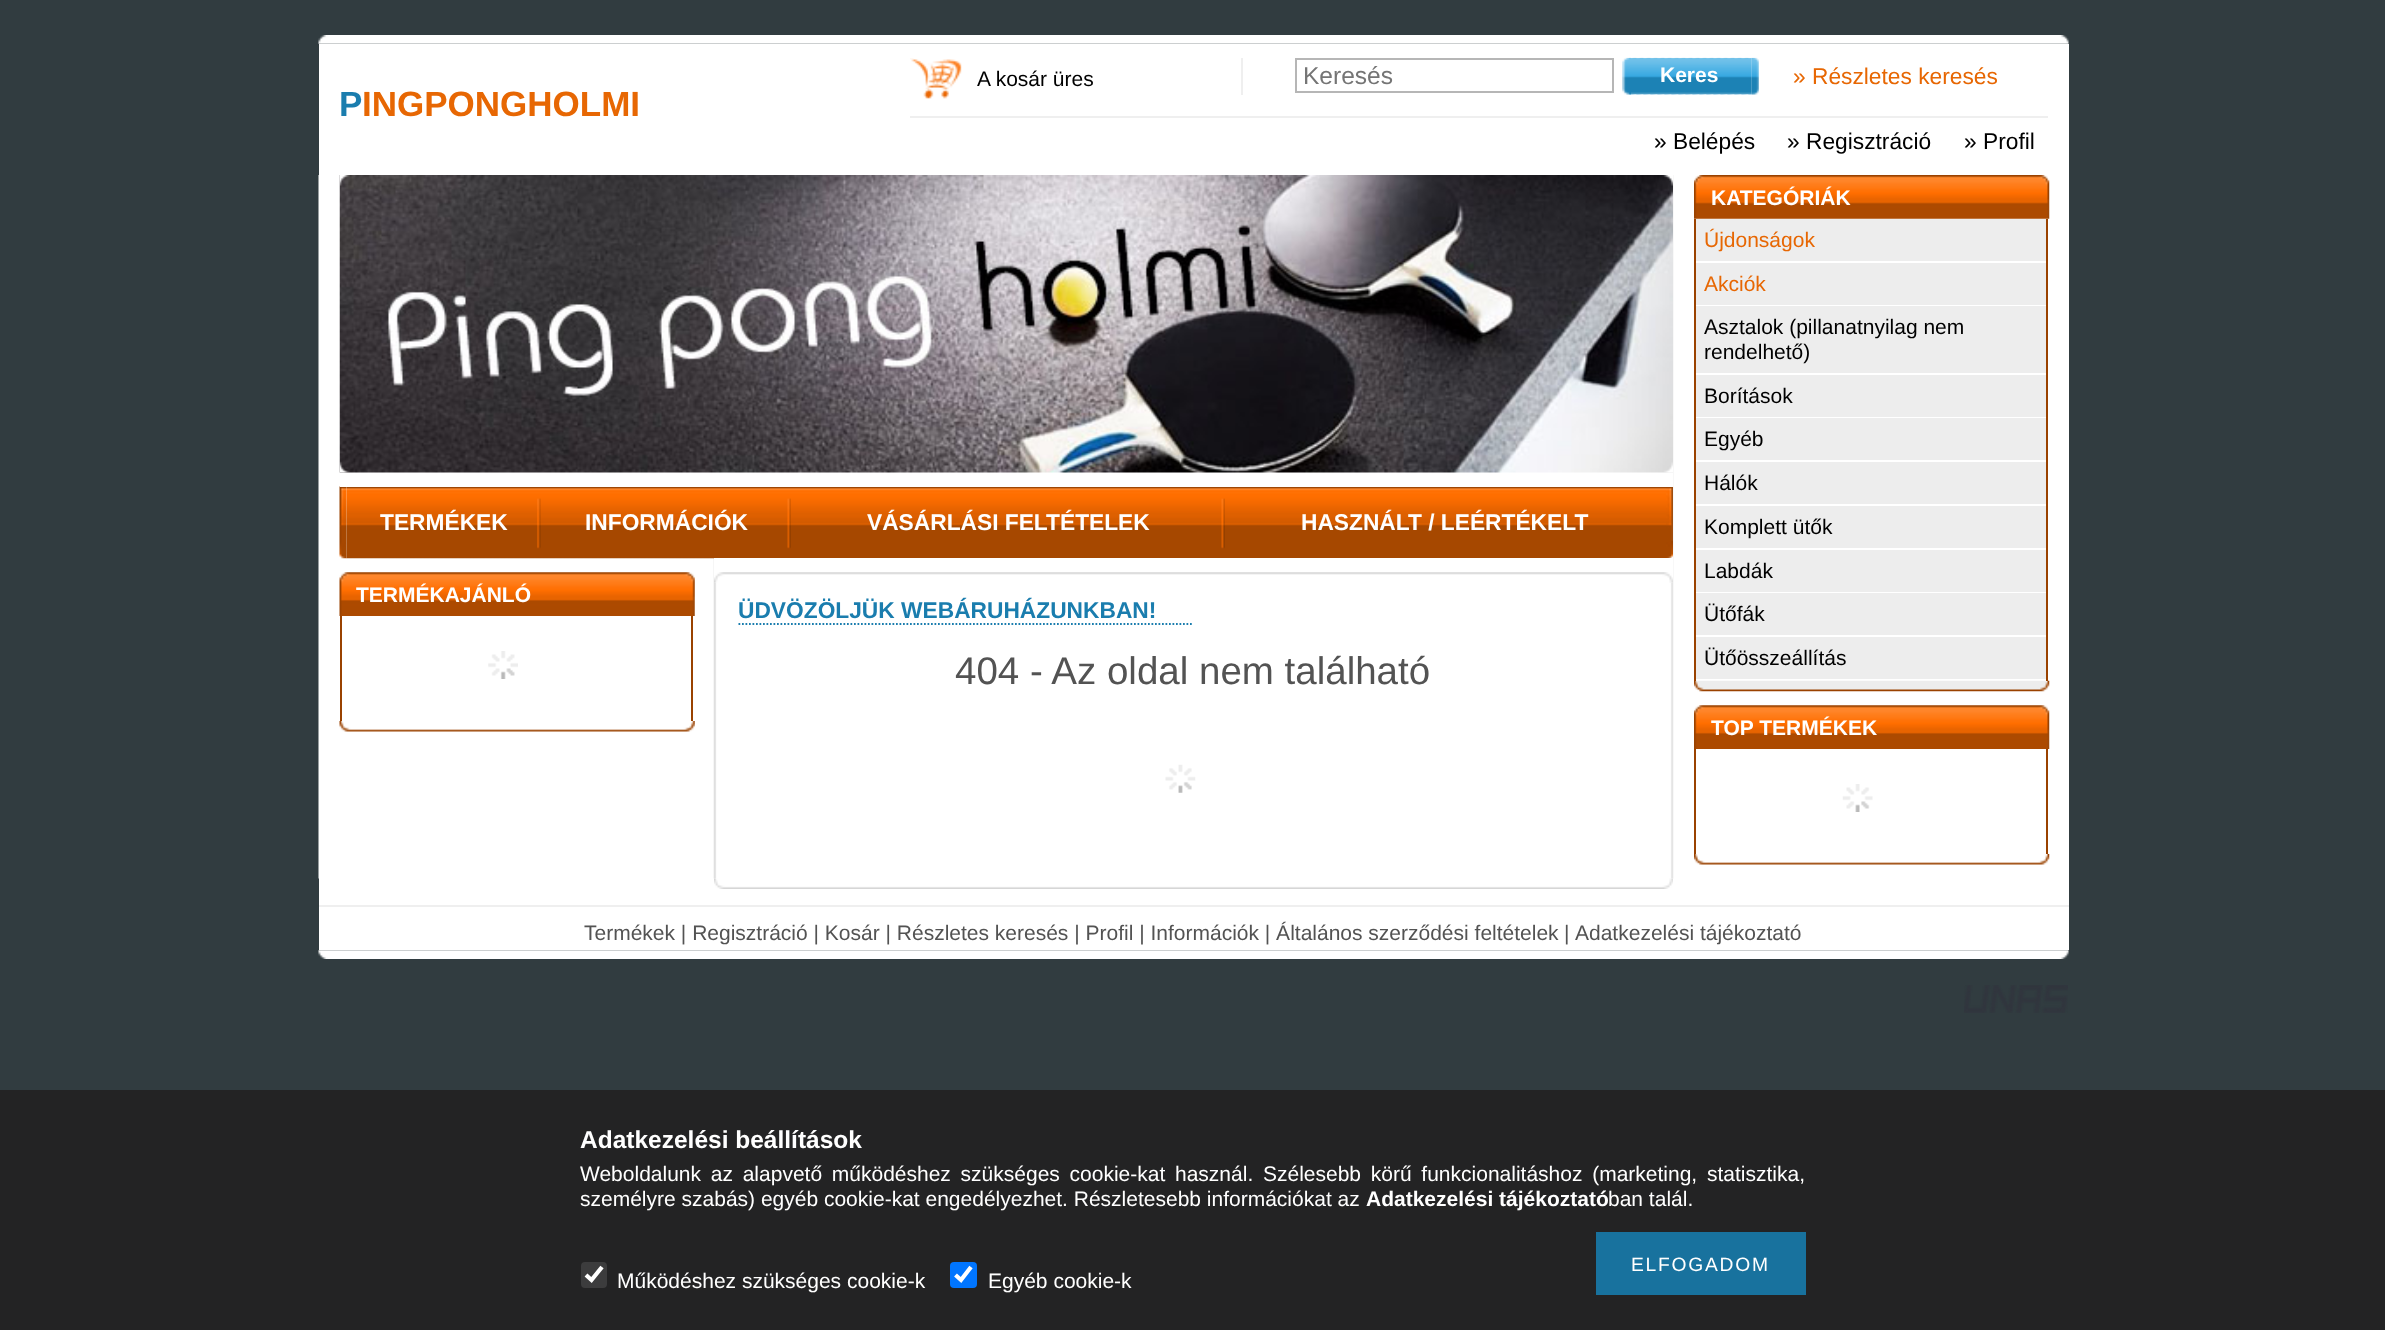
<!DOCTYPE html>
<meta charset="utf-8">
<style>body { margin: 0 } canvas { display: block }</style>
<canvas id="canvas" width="2385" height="1330"></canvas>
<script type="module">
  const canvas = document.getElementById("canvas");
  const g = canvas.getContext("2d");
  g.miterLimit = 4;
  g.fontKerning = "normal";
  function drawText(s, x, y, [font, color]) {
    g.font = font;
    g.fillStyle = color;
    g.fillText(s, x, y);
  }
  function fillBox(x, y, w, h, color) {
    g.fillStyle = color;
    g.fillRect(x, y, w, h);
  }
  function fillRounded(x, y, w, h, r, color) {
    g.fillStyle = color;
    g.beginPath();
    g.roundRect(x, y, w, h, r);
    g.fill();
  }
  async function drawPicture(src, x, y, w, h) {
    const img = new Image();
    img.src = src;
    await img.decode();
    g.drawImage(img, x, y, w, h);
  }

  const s1 = ["bold 35px Liberation Sans", "#1A7DAE"];
  const s2 = ["bold 35px Liberation Sans", "#E76703"];
  const s3 = ["21px Liberation Sans", "#000000"];
  const s4 = ["24.5px Liberation Sans", "#757575"];
  const s5 = ["bold 21px Liberation Sans", "#FFFFFF"];
  const s6 = ["22.75px Liberation Sans", "#E76703"];
  const s7 = ["22.75px Liberation Sans", "#000000"];
  const s8 = ["bold 22.75px Liberation Sans", "#FFFFFF"];
  const s9 = ["bold 22.75px Liberation Sans", "#1A7DAE"];
  const s10 = ["38.5px Liberation Sans", "#535353"];
  const s11 = ["21px Liberation Sans", "#E76703"];
  const s12 = ["21px Liberation Sans", "#535353"];
  const s13 = ["bold 24.5px Liberation Sans", "#FFFFFF"];
  const s14 = ["21px Liberation Sans", "#FFFFFF"];
  const s15 = ["19.25px Liberation Sans", "#FFFFFF"];

  fillBox(0, 0, 2385, 1330, "#313C40");
  await drawPicture("pic1.png", 318, 35, 1751, 9);
  fillBox(319, 44, 1750, 861, "#FFFFFF");
  drawText("P", 339, 116, s1);
  drawText("INGPONGHOLMI", 362, 116, s2);
  fillBox(910, 116, 1138, 2, "#EFEFEF");
  await drawPicture("pic2.png", 910, 58, 52, 41);
  fillBox(1241, 58, 2, 37, "#EFEFEF");
  drawText("A kosár üres", 977, 86, s3);
  g.strokeStyle = "#B6B6B6";
  g.lineWidth = 2;
  g.strokeRect(1296, 59, 317, 33);
  drawText("Keresés", 1303, 84, s4);
  await drawPicture("pic3.png", 1622, 57, 9, 38);
  await drawPicture("pic4.png", 1751, 57, 8, 38);
  await drawPicture("pic5.png", 1629, 57, 123, 38);
  drawText("Keres", 1660, 82, s5);
  drawText("» Részletes keresés", 1793, 84, s6);
  drawText("» Belépés", 1654, 149, s7);
  drawText("» Regisztráció", 1787, 149, s7);
  drawText("» Profil", 1964, 149, s7);
  await drawPicture("pic6.png", 318, 175, 1356, 704);
  await drawPicture("pic10.png", 339, 486, 8, 73);
  fillBox(340, 472, 1333, 15, "#FFFFFF");
  await drawPicture("pic7.png", 339, 175, 1334, 298);
  await drawPicture("pic8.png", 339, 175, 11, 298);
  await drawPicture("pic9.png", 1662, 175, 11, 298);
  await drawPicture("pic11.png", 346, 487, 1320, 72);
  await drawPicture("pic12.png", 537, 498, 4, 51);
  drawText("TERMÉKEK", 380, 530, s8);
  await drawPicture("pic13.png", 787, 498, 4, 51);
  drawText("INFORMÁCIÓK", 585, 530, s8);
  await drawPicture("pic13.png", 1221, 498, 4, 51);
  drawText("VÁSÁRLÁSI FELTÉTELEK", 867, 530, s8);
  drawText("HASZNÁLT / LEÉRTÉKELT", 1301, 530, s8);
  await drawPicture("pic14.png", 1666, 487, 7, 71);
  await drawPicture("pic15.png", 339, 572, 356, 44);
  drawText("TERMÉKAJÁNLÓ", 356, 602, s5);
  fillBox(691, 616, 2, 105, "#9A4200");
  fillBox(340, 616, 2, 105, "#9A4200");
  await drawPicture("pic16.png", 488, 651, 30, 28);
  await drawPicture("pic17.png", 339, 721, 356, 11);
  fillBox(714, 558, 959, 25, "#FFFFFF");
  await drawPicture("pic18.png", 714, 572, 959, 11);
  g.beginPath();
  g.moveTo(738.5, 624);
  g.lineTo(1192, 624);
  g.strokeStyle = "#1A7DAE";
  g.lineWidth = 1.8;
  g.setLineDash([1.75, 1.75]);
  g.stroke();
  drawText("ÜDVÖZÖLJÜK WEBÁRUHÁZUNKBAN!", 738, 618, s9);
  drawText("404 - Az oldal nem található", 955, 684, s10);
  await drawPicture("pic19.png", 1165, 764, 31, 29);
  await drawPicture("pic20.png", 1694, 175, 356, 44);
  drawText("KATEGÓRIÁK", 1711, 205, s5);
  await drawPicture("pic21.png", 1694, 680, 356, 12);
  fillBox(2046, 219, 2, 462, "#9A4200");
  fillBox(1694, 219, 2, 462, "#9A4200");
  fillBox(1696, 219, 350, 42, "#EDEDED");
  drawText("Újdonságok", 1704, 247, s11);
  fillBox(1696, 263, 350, 42, "#EDEDED");
  drawText("Akciók", 1704, 291, s11);
  fillBox(1696, 306, 350, 67, "#EDEDED");
  drawText("Asztalok (pillanatnyilag nem", 1704, 334, s3);
  drawText("rendelhető)", 1704, 359, s3);
  fillBox(1696, 375, 350, 42, "#EDEDED");
  drawText("Borítások", 1704, 403, s3);
  fillBox(1696, 418, 350, 42, "#EDEDED");
  drawText("Egyéb", 1704, 446, s3);
  fillBox(1696, 462, 350, 42, "#EDEDED");
  drawText("Hálók", 1704, 490, s3);
  fillBox(1696, 506, 350, 42, "#EDEDED");
  drawText("Komplett ütők", 1704, 534, s3);
  fillBox(1696, 550, 350, 42, "#EDEDED");
  drawText("Labdák", 1704, 578, s3);
  fillBox(1696, 593, 350, 42, "#EDEDED");
  drawText("Ütőfák", 1704, 621, s3);
  fillBox(1696, 637, 350, 42, "#EDEDED");
  drawText("Ütőösszeállítás", 1704, 665, s3);
  await drawPicture("pic22.png", 1694, 705, 356, 44);
  drawText("TOP TERMÉKEK", 1711, 735, s5);
  fillBox(2046, 749, 2, 105, "#9A4200");
  fillBox(1694, 749, 2, 105, "#9A4200");
  await drawPicture("pic23.png", 1842, 784, 31, 28);
  await drawPicture("pic24.png", 1694, 854, 356, 11);
  await drawPicture("pic25.png", 714, 878, 959, 11);
  fillBox(319, 905, 1750, 2, "#EFEFEF");
  fillBox(319, 907, 1750, 43, "#FFFFFF");
  drawText("Termékek | Regisztráció | Kosár | Részletes keresés | Profil | Információk | Általános szerződési feltételek", 584, 940, s12);
  drawText("|", 1564, 940, s12);
  drawText("Adatkezelési tájékoztató", 1575, 940, s12);
  await drawPicture("pic26.png", 318, 950, 1751, 9);
  await drawPicture("pic27.png", 1964, 985, 104, 28);
  fillBox(0, 1090, 2385, 240, "#232324");
  drawText("Adatkezelési beállítások", 580, 1148, s13);
  g.wordSpacing = "3.9px";
  drawText("Weboldalunk az alapvető működéshez szükséges cookie-kat használ. Szélesebb körű funkcionalitáshoz (marketing, statisztika,", 580, 1181, s14);
  g.wordSpacing = "0px";
  drawText("személyre szabás) egyéb cookie-kat engedélyezhet. Részletesebb információkat az", 580, 1206, s14);
  drawText("Adatkezelési tájékoztató", 1366, 1206, s5);
  drawText("ban talál.", 1608, 1206, s14);
  fillBox(1596, 1232, 210, 63, "#18729E");
  g.letterSpacing = "1.75px";
  drawText("ELFOGADOM", 1631, 1271, s15);
  fillRounded(581, 1262, 26, 26, 4, "#3C3C3D");
  g.beginPath();
  g.moveTo(586, 1275);
  g.lineTo(591.5, 1280);
  g.lineTo(602, 1267);
  g.strokeStyle = "#FFFFFF";
  g.lineWidth = 4.2;
  g.setLineDash([]);
  g.stroke();
  g.letterSpacing = "0px";
  drawText("Működéshez szükséges cookie-k", 617, 1288, s14);
  fillRounded(950, 1262, 27, 26, 4, "#0075FF");
  g.beginPath();
  g.moveTo(955.5, 1275);
  g.lineTo(961, 1280);
  g.lineTo(971, 1267);
  g.stroke();
  drawText("Egyéb cookie-k", 988, 1288, s14);
</script>
